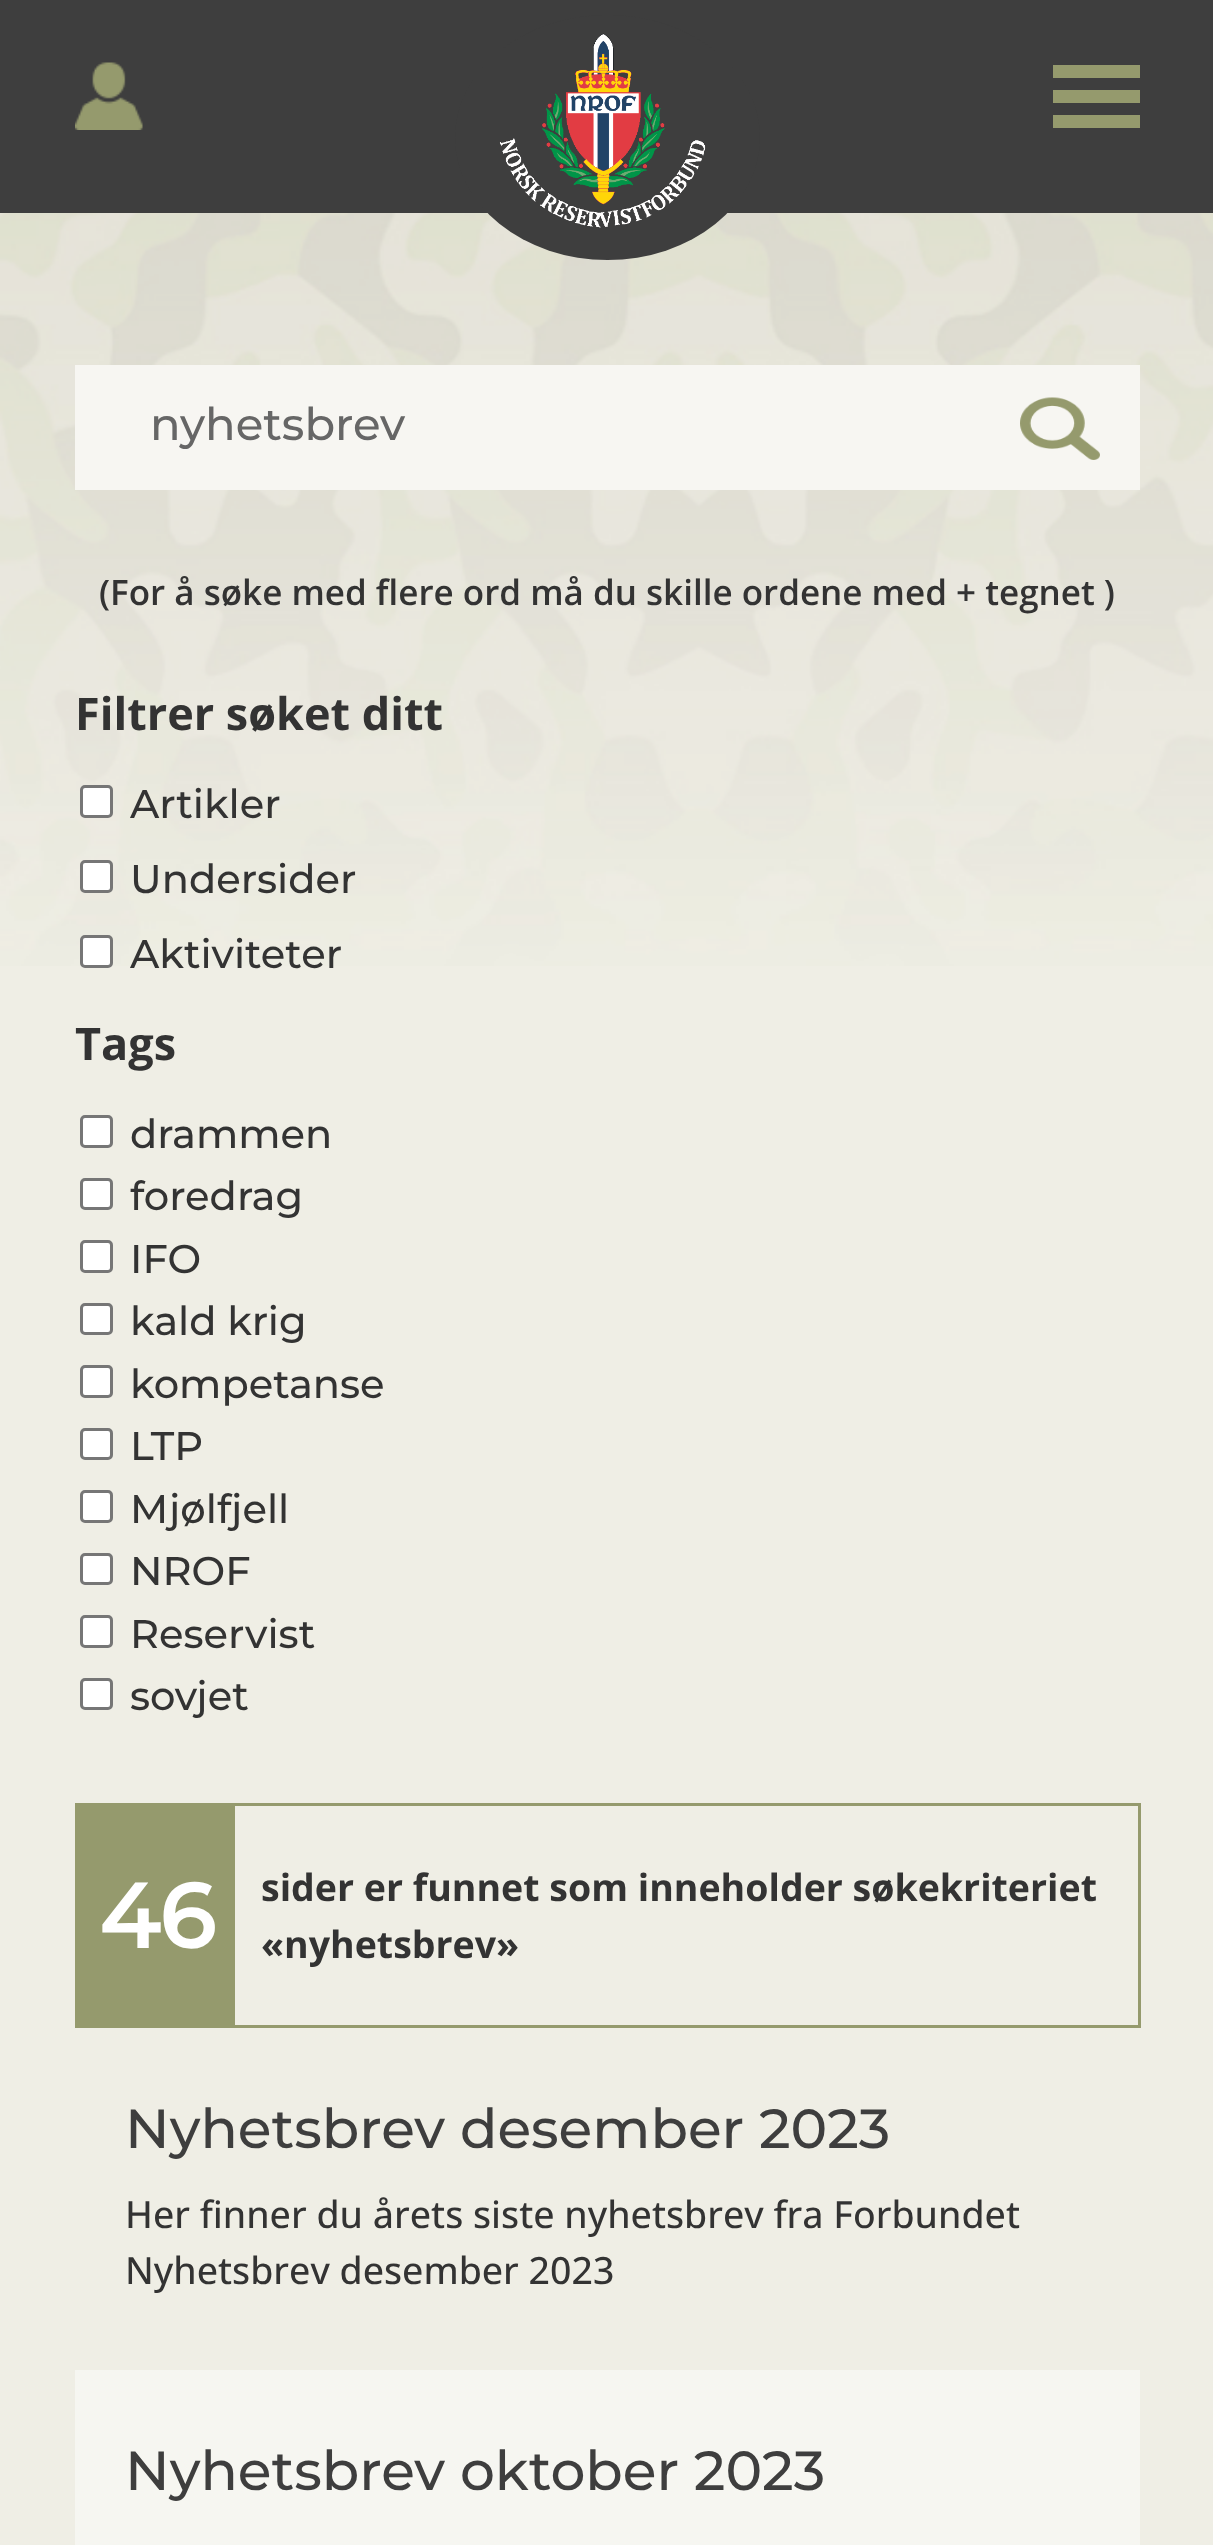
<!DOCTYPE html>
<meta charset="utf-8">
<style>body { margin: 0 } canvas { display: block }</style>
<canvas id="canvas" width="1213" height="2545"></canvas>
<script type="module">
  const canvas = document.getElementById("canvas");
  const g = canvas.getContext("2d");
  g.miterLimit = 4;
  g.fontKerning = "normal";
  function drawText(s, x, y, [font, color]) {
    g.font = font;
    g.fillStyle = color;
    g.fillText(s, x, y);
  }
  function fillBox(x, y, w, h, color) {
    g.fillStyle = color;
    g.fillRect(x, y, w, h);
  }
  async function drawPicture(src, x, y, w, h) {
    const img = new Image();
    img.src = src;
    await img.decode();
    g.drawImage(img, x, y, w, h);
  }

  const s1 = ["100 45px Montserrat", "#666666"];
  const s2 = ["600 35px Open Sans", "#333333"];
  const s3 = ["bold 45px Open Sans", "#333333"];
  const s4 = ["100 40px Montserrat", "#333333"];
  const s5 = ["bold 90px Montserrat", "#FFFFFF"];
  const s6 = ["bold 37.5px Open Sans", "#333333"];
  const s7 = ["100 55px Montserrat", "#3E3E3E"];
  const s8 = ["500 37.5px Open Sans", "#333333"];

  fillBox(0, 0, 1213, 2545, "#EFEEE5");
  await drawPicture("pic1.png", 0, 213, 1213, 753);
  fillBox(0, 0, 1213, 213, "#3E3E3E");
  g.beginPath();
  g.ellipse(607.5, 137.5, 152.5, 122.5, 0, 0, Math.PI * 2);
  g.fill();
  await drawPicture("pic2.png", 499, 33, 207, 195);
  await drawPicture("pic3.png", 75, 62, 68, 68);
  fillBox(1053, 90, 87, 13, "#959A6D");
  fillBox(1053, 65, 87, 13, "#959A6D");
  fillBox(1053, 115, 87, 13, "#959A6D");
  fillBox(75, 365, 1065, 125, "#F7F6F2");
  await drawPicture("pic4.png", 1020, 397, 80, 63);
  drawText("nyhetsbrev", 150, 440, s1);
  drawText("(For å søke med flere ord må du skille ordene med + tegnet )", 99, 605, s2);
  drawText("Filtrer søket ditt", 75, 730, s3);
  g.fillStyle = "#FFFFFF";
  g.beginPath();
  g.roundRect(81.5, 786.5, 30, 30, 3.5);
  g.fill();
  g.strokeStyle = "#767676";
  g.lineWidth = 3;
  g.stroke();
  drawText("Artikler", 130, 818, s4);
  g.fillStyle = "#FFFFFF";
  g.beginPath();
  g.roundRect(81.5, 861.5, 30, 30, 3.5);
  g.fill();
  g.stroke();
  drawText("Undersider", 130, 893, s4);
  g.fillStyle = "#FFFFFF";
  g.beginPath();
  g.roundRect(81.5, 936.5, 30, 30, 3.5);
  g.fill();
  g.stroke();
  drawText("Aktiviteter", 130, 968, s4);
  drawText("Tags", 75, 1060, s3);
  g.fillStyle = "#FFFFFF";
  g.beginPath();
  g.roundRect(81.5, 1116.5, 30, 30, 3.5);
  g.fill();
  g.stroke();
  drawText("drammen", 130, 1148, s4);
  g.fillStyle = "#FFFFFF";
  g.beginPath();
  g.roundRect(81.5, 1179.5, 30, 29, 3.5);
  g.fill();
  g.stroke();
  drawText("foredrag", 130, 1210, s4);
  g.fillStyle = "#FFFFFF";
  g.beginPath();
  g.roundRect(81.5, 1241.5, 30, 30, 3.5);
  g.fill();
  g.stroke();
  drawText("IFO", 130, 1273, s4);
  g.fillStyle = "#FFFFFF";
  g.beginPath();
  g.roundRect(81.5, 1304.5, 30, 29, 3.5);
  g.fill();
  g.stroke();
  drawText("kald krig", 130, 1335, s4);
  g.fillStyle = "#FFFFFF";
  g.beginPath();
  g.roundRect(81.5, 1366.5, 30, 30, 3.5);
  g.fill();
  g.stroke();
  drawText("kompetanse", 130, 1398, s4);
  g.fillStyle = "#FFFFFF";
  g.beginPath();
  g.roundRect(81.5, 1429.5, 30, 29, 3.5);
  g.fill();
  g.stroke();
  drawText("LTP", 130, 1460, s4);
  g.fillStyle = "#FFFFFF";
  g.beginPath();
  g.roundRect(81.5, 1491.5, 30, 30, 3.5);
  g.fill();
  g.stroke();
  drawText("Mjølfjell", 130, 1523, s4);
  g.fillStyle = "#FFFFFF";
  g.beginPath();
  g.roundRect(81.5, 1554.5, 30, 29, 3.5);
  g.fill();
  g.stroke();
  drawText("NROF", 130, 1585, s4);
  g.fillStyle = "#FFFFFF";
  g.beginPath();
  g.roundRect(81.5, 1616.5, 30, 30, 3.5);
  g.fill();
  g.stroke();
  drawText("Reservist", 130, 1648, s4);
  g.fillStyle = "#FFFFFF";
  g.beginPath();
  g.roundRect(81.5, 1679.5, 30, 29, 3.5);
  g.fill();
  g.stroke();
  drawText("sovjet", 130, 1710, s4);
  fillBox(75, 1803, 1065, 3, "#959A6D");
  fillBox(1138, 1803, 3, 225, "#959A6D");
  fillBox(75, 2025, 1065, 3, "#959A6D");
  fillBox(75, 1803, 3, 225, "#959A6D");
  fillBox(78, 1806, 157, 219, "#959A6D");
  drawText("46", 99, 1948, s5);
  drawText("sider er funnet som inneholder søkekriteriet", 261, 1901, s6);
  drawText("«nyhetsbrev»", 261, 1958, s6);
  drawText("Nyhetsbrev desember 2023", 125, 2148, s7);
  drawText("Her finner du årets siste nyhetsbrev fra Forbundet", 125, 2228, s8);
  drawText("Nyhetsbrev desember 2023", 125, 2284, s8);
  fillBox(75, 2370, 1065, 175, "#F6F6F1");
  drawText("Nyhetsbrev oktober 2023", 125, 2490, s7);
</script>
